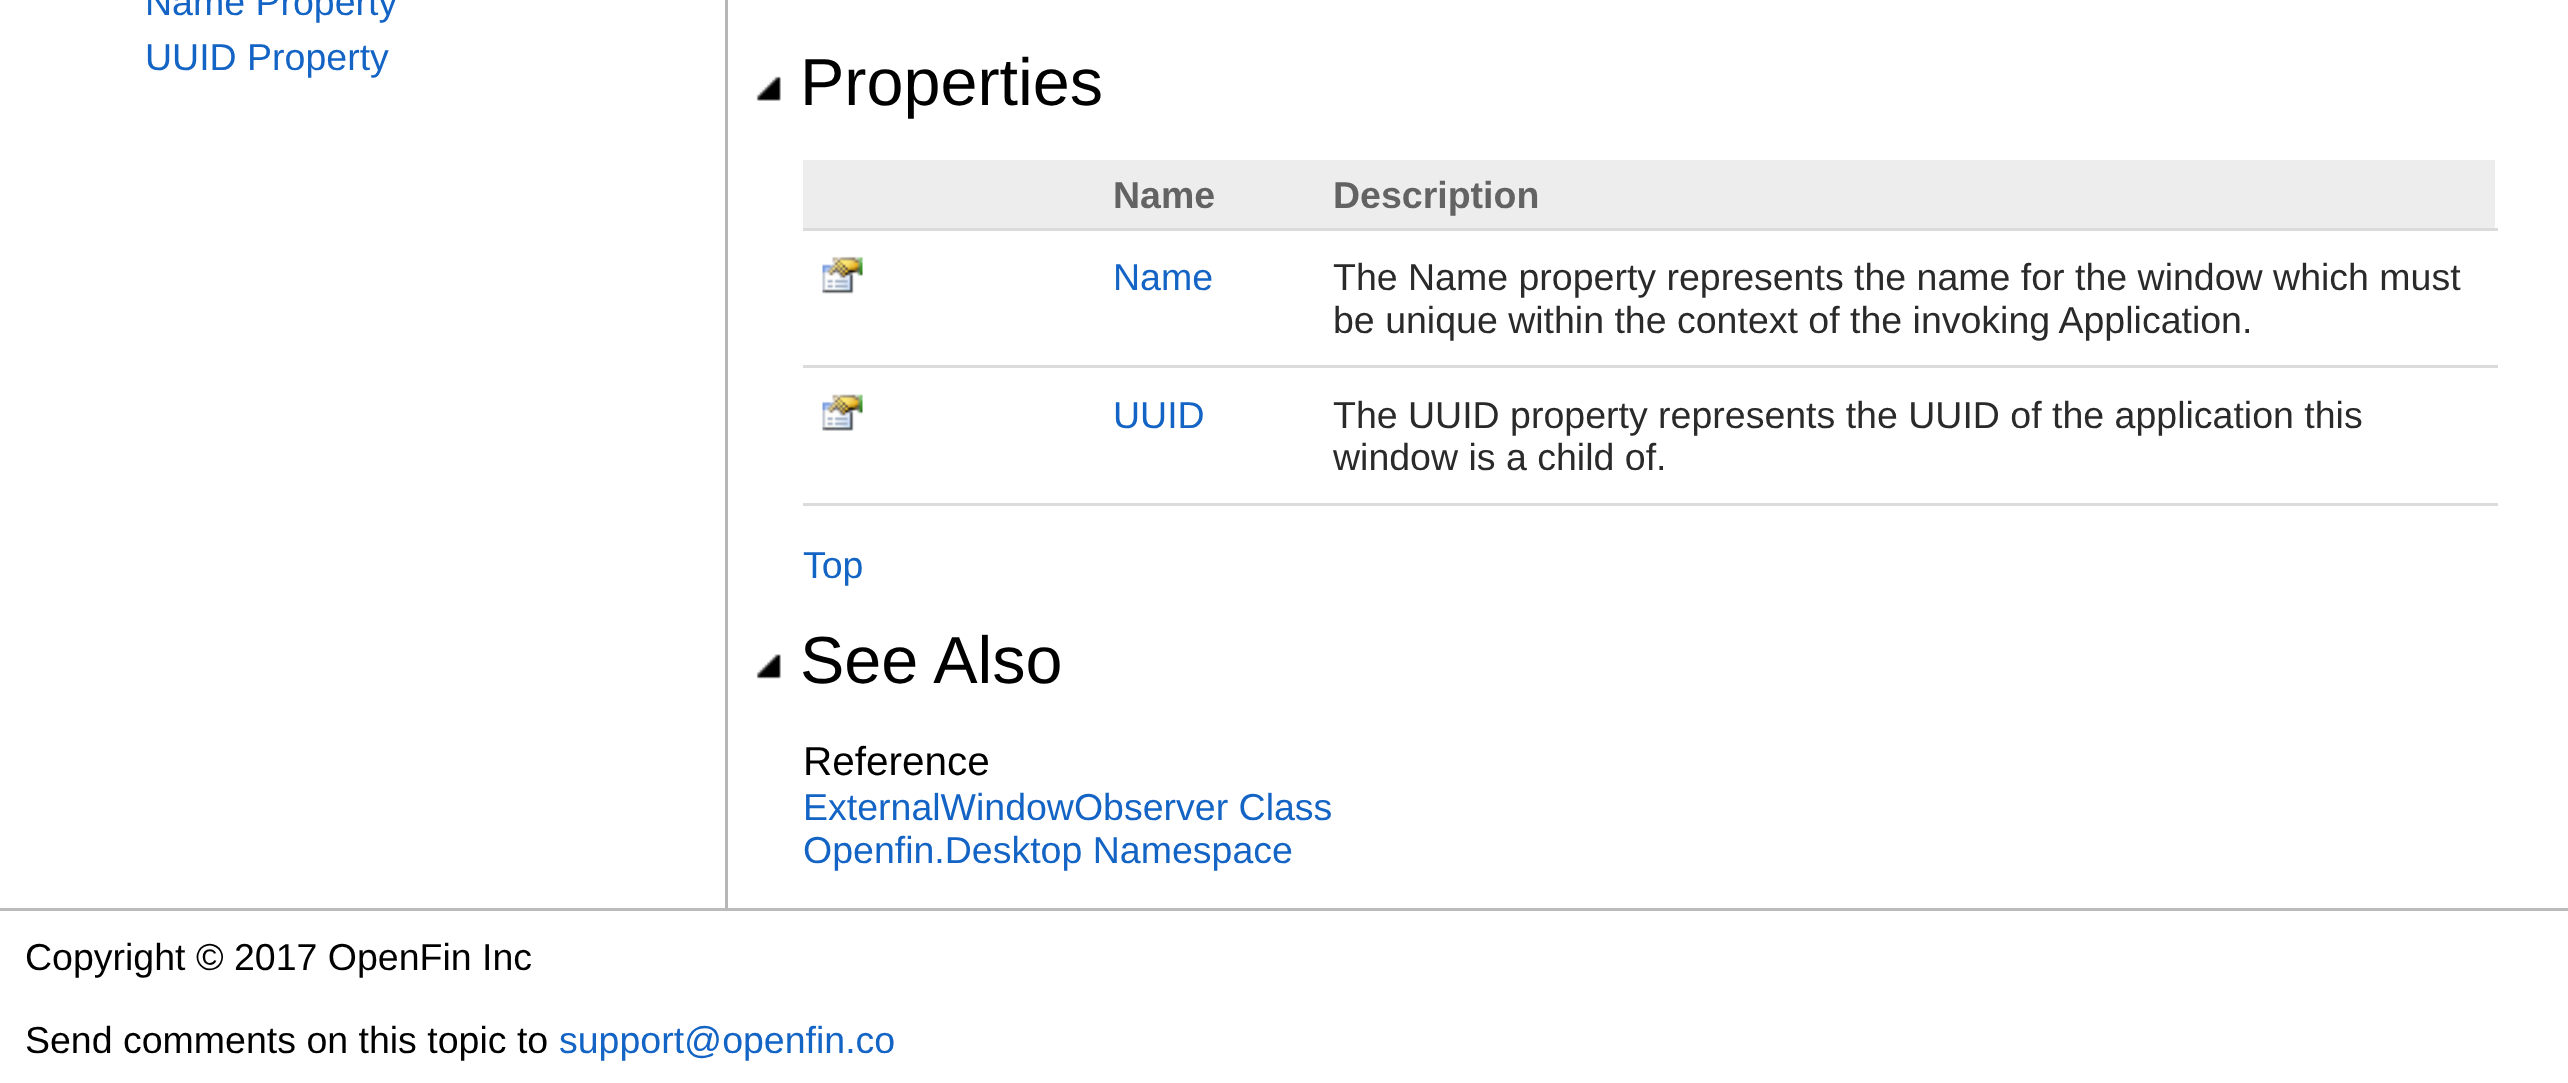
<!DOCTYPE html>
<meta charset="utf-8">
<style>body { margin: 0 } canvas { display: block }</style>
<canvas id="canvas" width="2568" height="1083"></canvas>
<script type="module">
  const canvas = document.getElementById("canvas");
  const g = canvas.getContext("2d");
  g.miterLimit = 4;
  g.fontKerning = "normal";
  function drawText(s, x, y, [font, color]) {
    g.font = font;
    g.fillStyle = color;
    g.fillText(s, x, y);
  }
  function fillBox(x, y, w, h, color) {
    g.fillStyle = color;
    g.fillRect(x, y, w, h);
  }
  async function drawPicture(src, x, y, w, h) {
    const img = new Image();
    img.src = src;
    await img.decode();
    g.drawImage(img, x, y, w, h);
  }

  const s1 = ["37.5px Liberation Sans", "#1364C4"];
  const s2 = ["66.5px Liberation Sans", "#000000"];
  const s3 = ["bold 37.5px Liberation Sans", "#636363"];
  const s4 = ["37.5px Liberation Sans", "#2A2A2A"];
  const s5 = ["40.5px Liberation Sans", "#000000"];
  const s6 = ["37.5px Liberation Sans", "#000000"];

  fillBox(0, 0, 2568, 1083, "#FFFFFF");
  fillBox(725, 0, 3, 908, "#B6B6B6");
  drawText("Name Property", 145, 15, s1);
  drawText("UUID Property", 145, 70, s1);
  await drawPicture("pic1.png", 756, 76, 25, 25);
  drawText("Properties", 800, 105, s2);
  fillBox(803, 160, 1692, 68, "#EDEDED");
  drawText("Name", 1113, 208, s3);
  fillBox(803, 228, 1695, 3, "#DBDBDB");
  drawText("Description", 1333, 208, s3);
  await drawPicture("pic2.png", 822, 256, 41, 38);
  drawText("Name", 1113, 290, s1);
  fillBox(803, 365, 1695, 3, "#DBDBDB");
  drawText("The Name property represents the name for the window which must", 1333, 290, s4);
  drawText("be unique within the context of the invoking Application.", 1333, 333, s4);
  await drawPicture("pic3.png", 822, 394, 41, 37);
  drawText("UUID", 1113, 428, s1);
  fillBox(803, 503, 1695, 3, "#DBDBDB");
  drawText("The UUID property represents the UUID of the application this", 1333, 428, s4);
  drawText("window is a child of.", 1333, 470, s4);
  drawText("Top", 803, 578, s1);
  await drawPicture("pic4.png", 756, 654, 25, 25);
  drawText("See Also", 800, 683, s2);
  drawText("Reference", 803, 775, s5);
  drawText("ExternalWindowObserver Class", 803, 820, s1);
  drawText("Openfin.Desktop Namespace", 803, 863, s1);
  fillBox(0, 908, 2568, 3, "#BBBBBB");
  drawText("Copyright © 2017 OpenFin Inc", 25, 970, s6);
  drawText("Send comments on this topic to", 25, 1053, s6);
  drawText("support@openfin.co", 559, 1053, s1);
</script>
